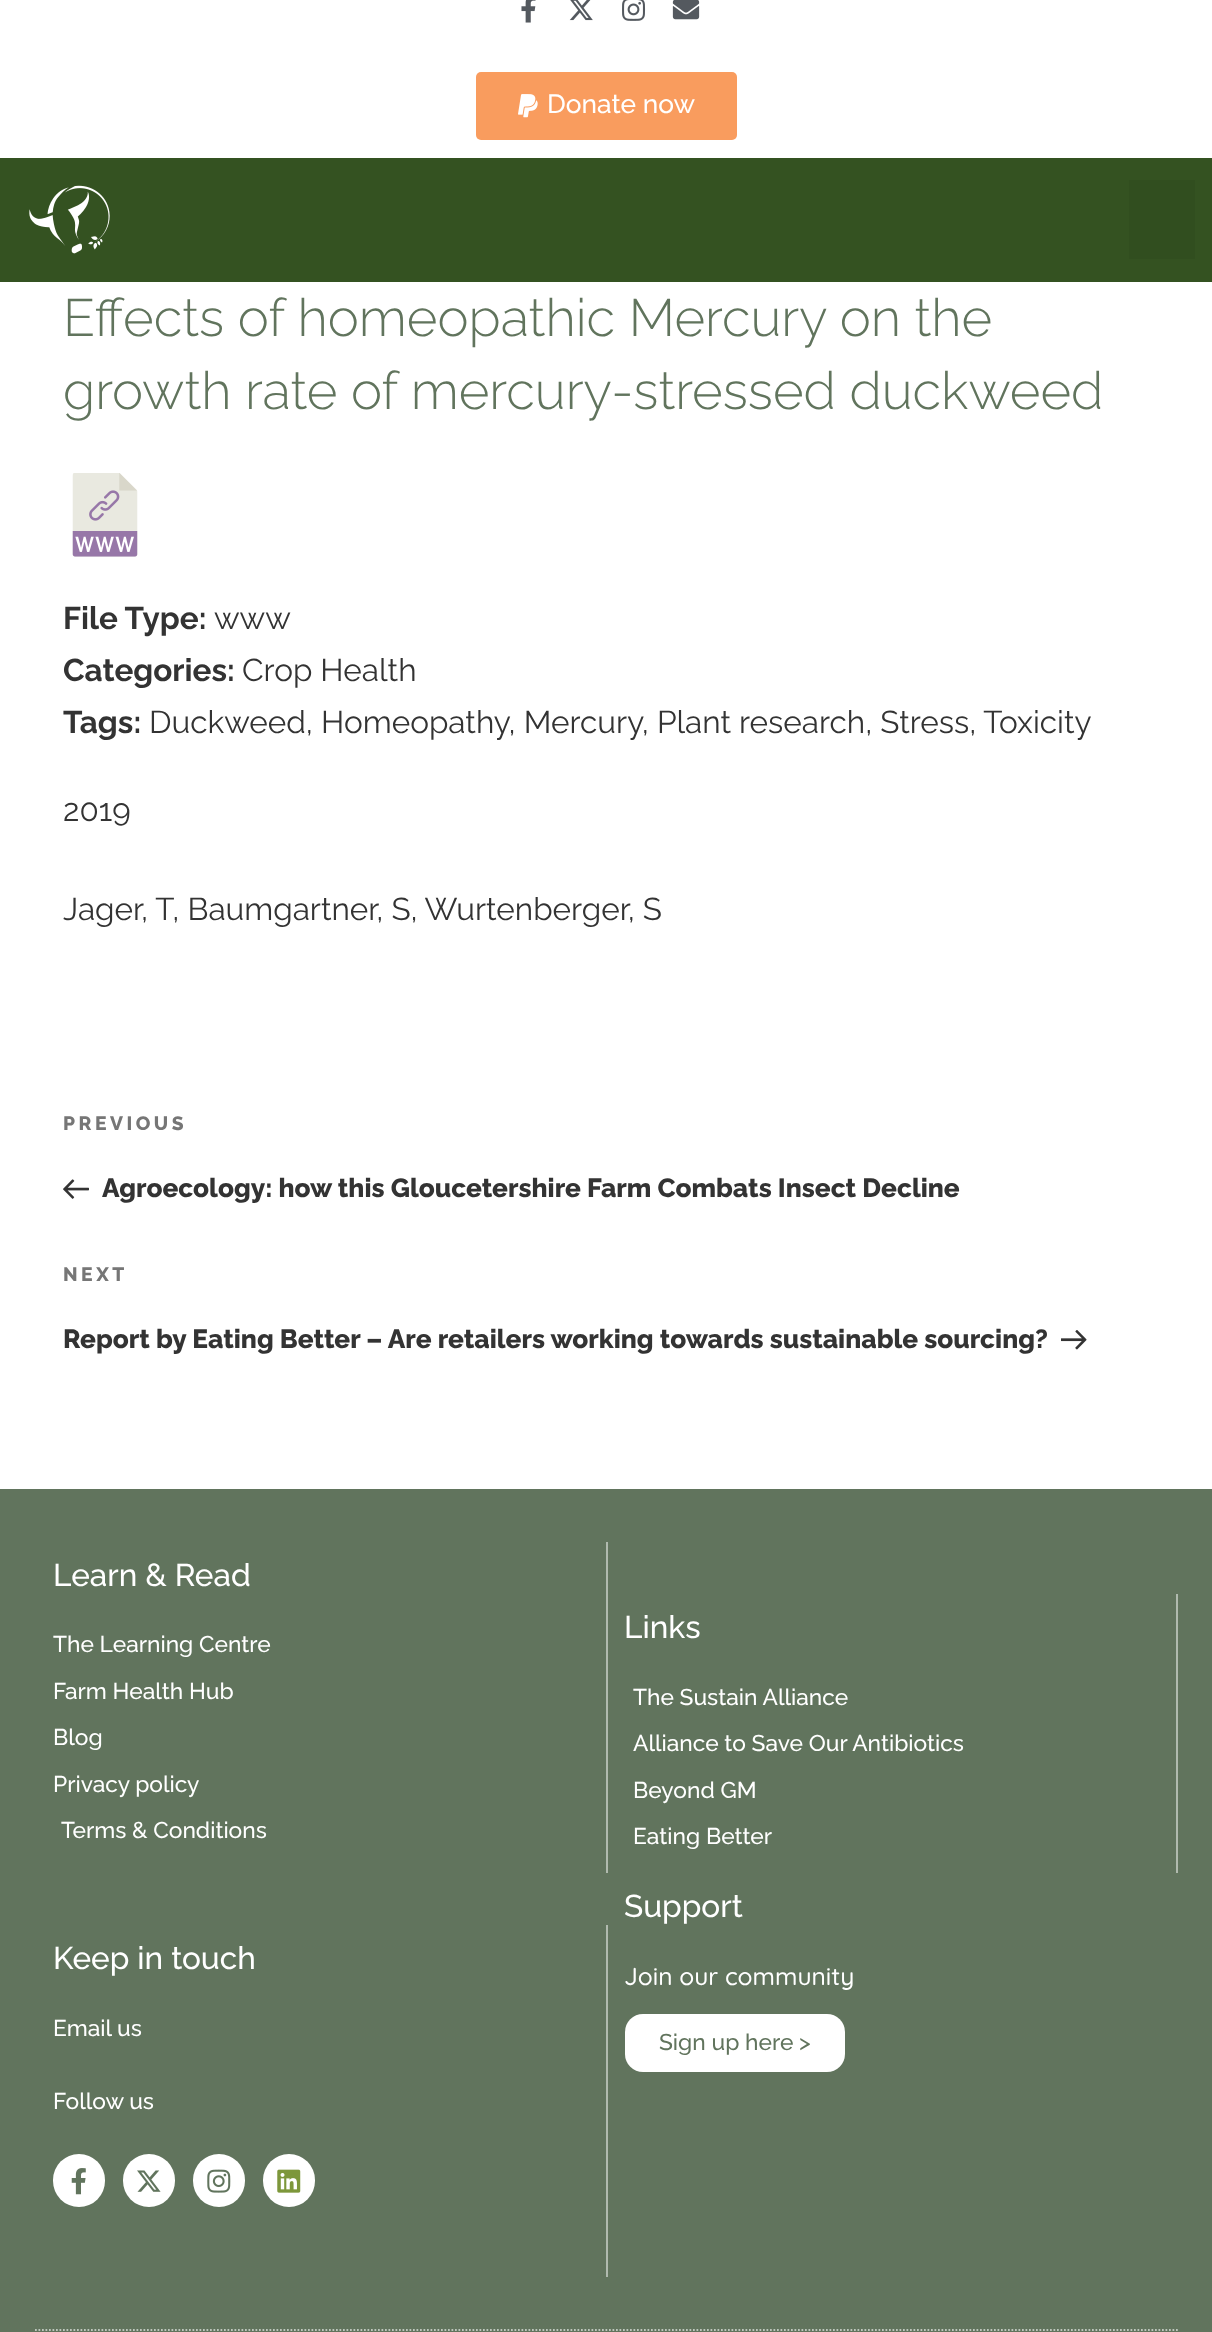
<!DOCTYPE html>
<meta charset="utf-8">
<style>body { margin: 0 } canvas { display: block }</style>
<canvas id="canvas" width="1212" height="2332"></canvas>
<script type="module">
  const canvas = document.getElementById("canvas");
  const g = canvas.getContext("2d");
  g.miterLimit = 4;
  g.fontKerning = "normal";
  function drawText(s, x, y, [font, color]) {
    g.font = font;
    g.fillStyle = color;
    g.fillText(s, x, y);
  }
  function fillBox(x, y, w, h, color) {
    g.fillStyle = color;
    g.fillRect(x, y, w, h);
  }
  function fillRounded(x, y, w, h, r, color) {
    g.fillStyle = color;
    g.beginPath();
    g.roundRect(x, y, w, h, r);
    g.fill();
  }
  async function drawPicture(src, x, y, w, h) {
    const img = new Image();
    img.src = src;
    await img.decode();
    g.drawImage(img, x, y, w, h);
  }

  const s1 = ["500 26.25px Raleway", "#FFFFFF"];
  const s2 = ["300 52.5px Raleway", "#61745D"];
  const s3 = ["bold 31.5px Raleway", "#333333"];
  const s4 = ["31.5px Raleway", "#333333"];
  const s5 = ["800 19.25px Raleway", "#767676"];
  const s6 = ["800 26.25px Raleway", "#333333"];
  const s7 = ["500 31.5px Raleway", "#FFFFFF"];
  const s8 = ["500 22.75px Raleway", "#FFFFFF"];
  const s9 = ["500 24.5px Quicksand", "#FFFFFF"];
  const s10 = ["500 22.75px Raleway", "#61745D"];

  fillBox(0, 0, 1212, 2332, "#FFFFFF");
  await drawPicture("pic1.png", 521, 0, 15, 23);
  await drawPicture("pic2.png", 569, 0, 24, 21);
  await drawPicture("pic3.png", 622, 0, 24, 21);
  await drawPicture("pic4.png", 672, 0, 28, 20);
  fillRounded(476, 72, 261, 68, 5, "#F99C5E");
  await drawPicture("pic5.png", 518, 94, 20, 24);
  drawText("Donate now", 547, 113, s1);
  fillBox(0, 158, 1212, 124, "#345221");
  await drawPicture("pic6.png", 29, 185, 81, 69);
  fillBox(1129, 180, 66, 79, "#314E1F");
  drawText("Effects of homeopathic Mercury on the", 63, 336, s2);
  drawText("growth rate of mercury-stressed duckweed", 63, 409, s2);
  await drawPicture("pic7.png", 72, 473, 66, 84);
  drawText("File Type:", 63, 629, s3);
  drawText("www", 214, 629, s4);
  drawText("Categories:", 63, 681, s3);
  drawText("Crop Health", 242, 681, s4);
  drawText("Tags:", 63, 733, s3);
  drawText("Duckweed, Homeopathy, Mercury, Plant research, Stress, Toxicity", 149, 733, s4);
  drawText("2019", 63, 821, s4);
  drawText("Jager, T, Baumgartner, S, Wurtenberger, S", 63, 920, s4);
  g.letterSpacing = "3.5px";
  drawText("PREVIOUS", 63, 1130, s5);
  await drawPicture("pic8.png", 63, 1179, 26, 20);
  g.letterSpacing = "0px";
  drawText("Agroecology: how this Gloucetershire Farm Combats Insect Decline", 102, 1197, s6);
  g.letterSpacing = "3.5px";
  drawText("NEXT", 63, 1281, s5);
  g.letterSpacing = "0px";
  drawText("Report by Eating Better – Are retailers working towards sustainable sourcing?", 63, 1348, s6);
  await drawPicture("pic9.png", 1061, 1330, 26, 20);
  fillBox(0, 1489, 1212, 843, "#61745D");
  fillBox(606, 1542, 2, 331, "#B0BAAE");
  drawText("Learn & Read", 53, 1586, s7);
  drawText("The Learning Centre", 53, 1652, s8);
  drawText("Farm Health Hub", 53, 1699, s8);
  drawText("Blog", 53, 1745, s8);
  drawText("Privacy policy", 53, 1792, s8);
  drawText("Terms & Conditions", 61, 1838, s8);
  fillBox(1176, 1594, 2, 279, "#B0BAAE");
  drawText("Links", 624, 1638, s7);
  drawText("The Sustain Alliance", 633, 1705, s8);
  drawText("Alliance to Save Our Antibiotics", 633, 1751, s8);
  drawText("Beyond GM", 633, 1798, s8);
  drawText("Eating Better", 633, 1844, s8);
  fillBox(606, 1925, 2, 352, "#B0BAAE");
  drawText("Keep in touch", 53, 1969, s7);
  drawText("Email us", 53, 2036, s8);
  drawText("Follow us", 53, 2109, s8);
  fillRounded(53, 2154, 52, 53, 26, "#FFFFFF");
  await drawPicture("pic10.png", 71, 2168, 15, 27);
  fillRounded(123, 2154, 52, 53, 26, "#FFFFFF");
  await drawPicture("pic11.png", 137, 2170, 24, 22);
  fillRounded(193, 2154, 52, 53, 26, "#FFFFFF");
  await drawPicture("pic12.png", 207, 2169, 24, 24);
  fillRounded(263, 2154, 52, 53, 26, "#FFFFFF");
  await drawPicture("pic13.png", 277, 2169, 24, 24);
  drawText("Support", 624, 1917, s7);
  drawText("Join our community", 624, 1985, s9);
  fillRounded(625, 2014, 220, 58, 18, "#FFFFFF");
  drawText("Sign up here >", 659, 2050, s10);
  g.beginPath();
  g.moveTo(35, 2330);
  g.lineTo(1178, 2330);
  g.strokeStyle = "#BEC6BD";
  g.lineWidth = 1.8;
  g.setLineDash([1.75, 1.75]);
  g.stroke();
</script>
